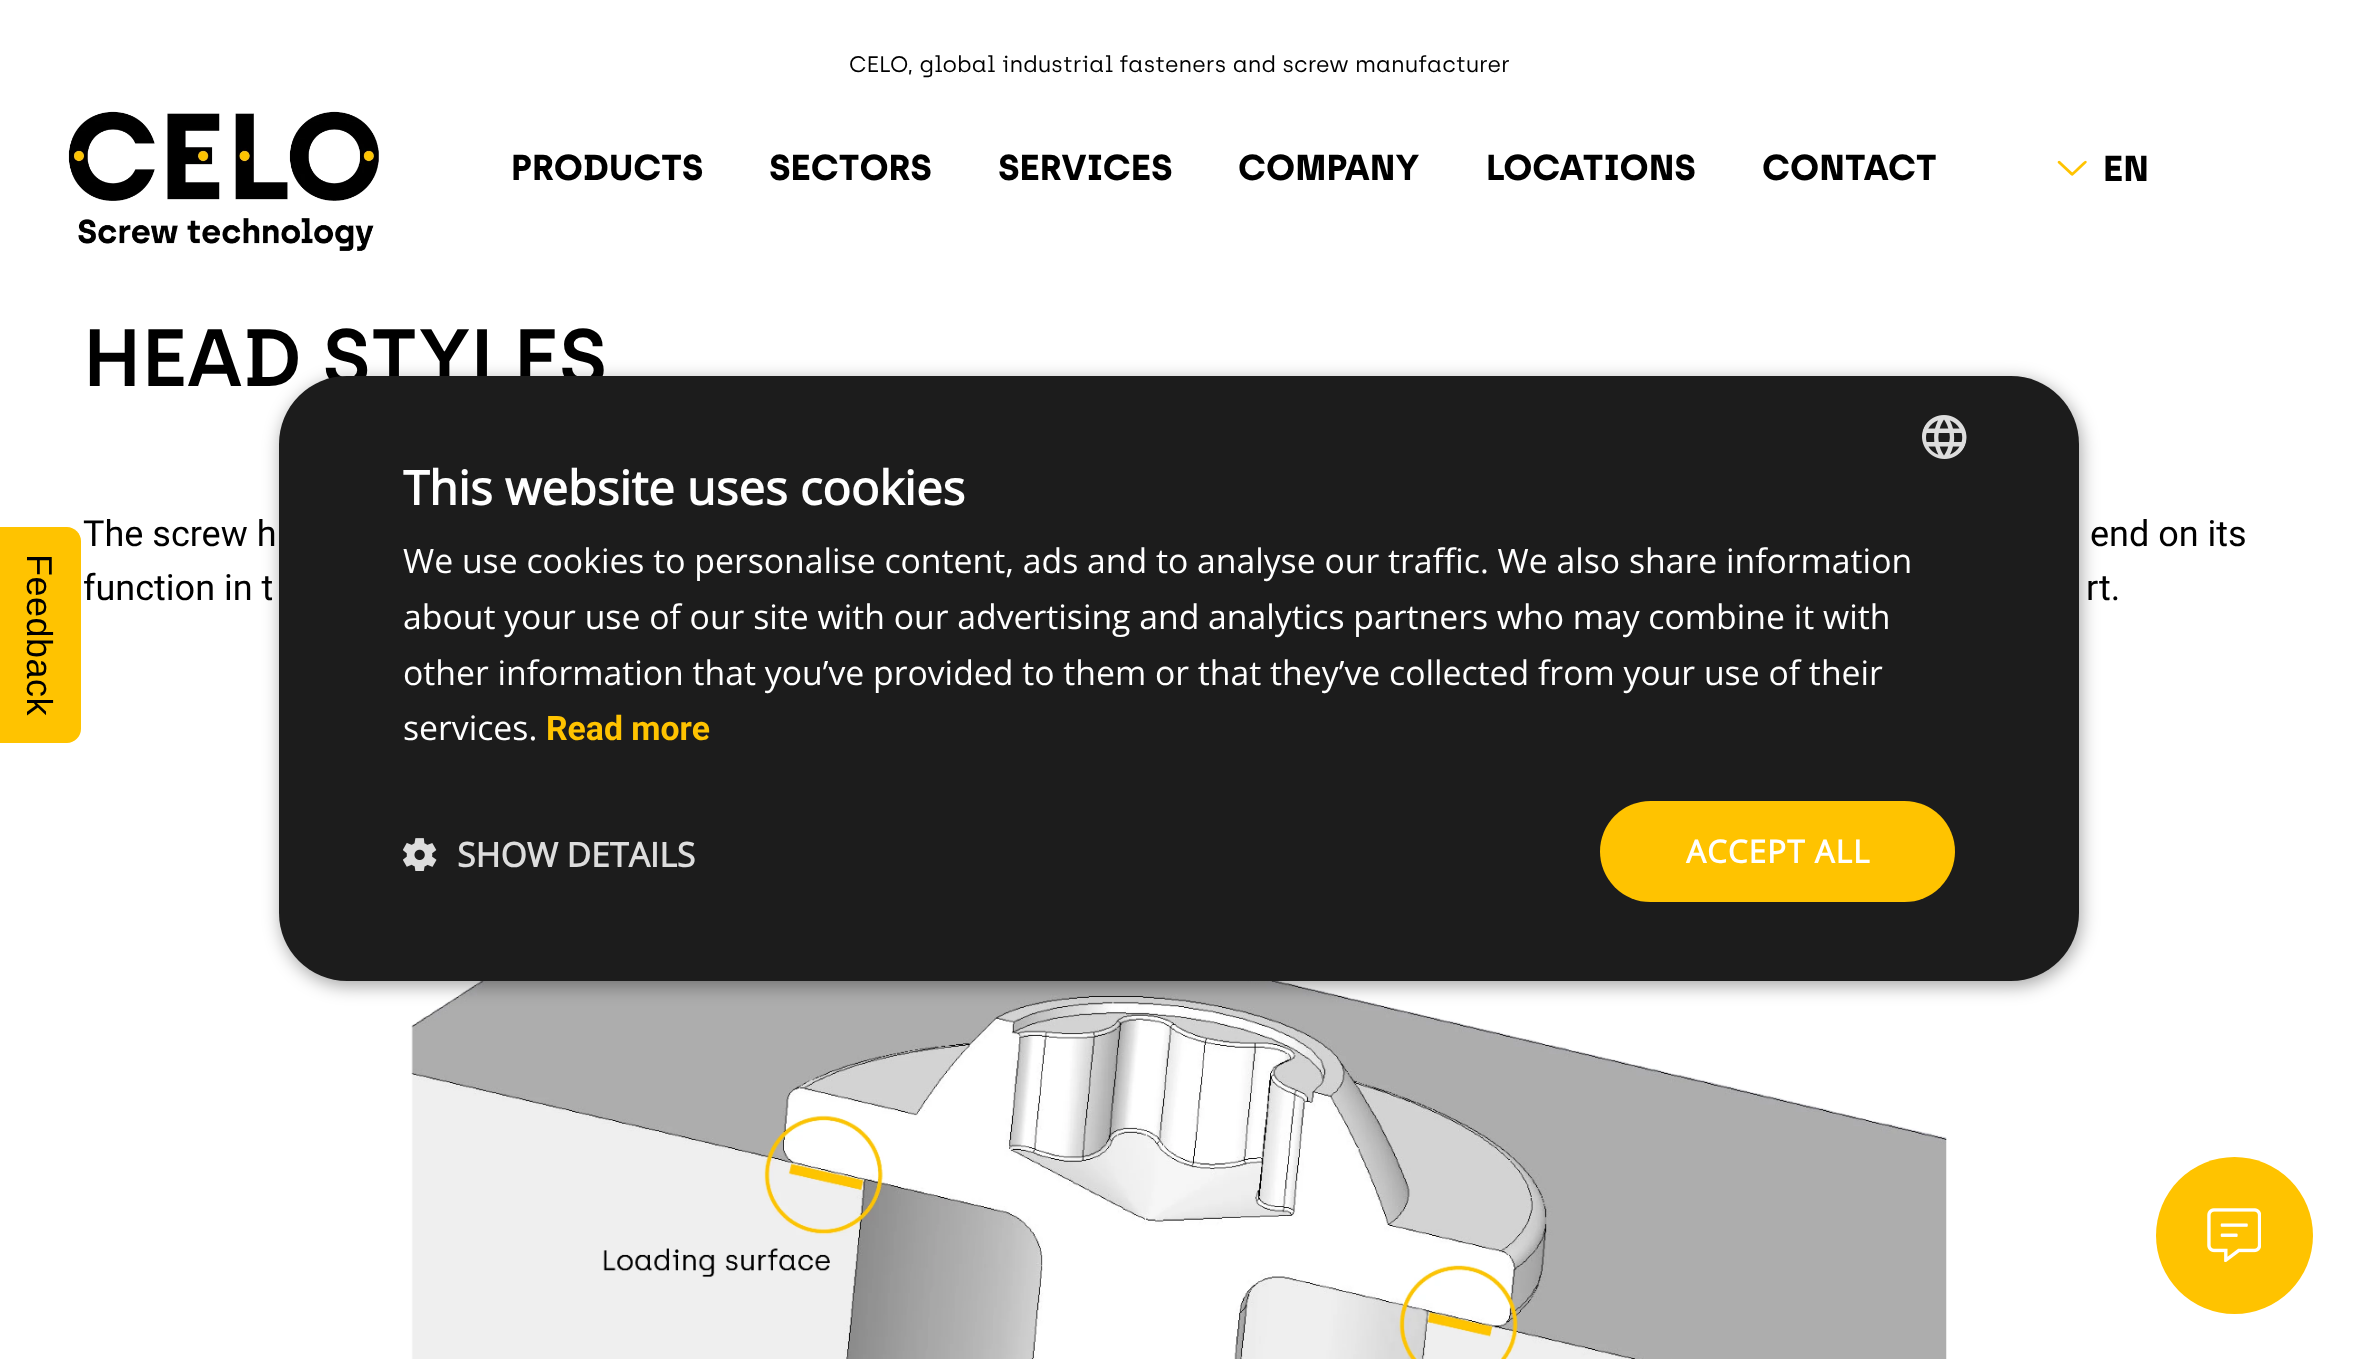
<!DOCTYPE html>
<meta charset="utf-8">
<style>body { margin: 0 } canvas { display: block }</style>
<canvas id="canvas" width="2357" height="1359"></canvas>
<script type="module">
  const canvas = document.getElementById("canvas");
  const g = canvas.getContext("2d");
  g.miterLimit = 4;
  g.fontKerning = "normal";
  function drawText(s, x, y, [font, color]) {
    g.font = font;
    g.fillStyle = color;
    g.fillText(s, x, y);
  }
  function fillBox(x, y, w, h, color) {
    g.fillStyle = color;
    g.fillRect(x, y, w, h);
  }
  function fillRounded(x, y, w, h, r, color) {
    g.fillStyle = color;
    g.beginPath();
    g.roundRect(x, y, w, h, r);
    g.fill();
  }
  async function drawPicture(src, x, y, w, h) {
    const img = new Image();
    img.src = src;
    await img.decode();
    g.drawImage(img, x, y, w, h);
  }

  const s1 = ["22.5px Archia", "#000000"];
  const s2 = ["bold 36px Archia", "#000000"];
  const s3 = ["600 81px Archia", "#000000"];
  const s4 = ["36px Roboto", "#000000"];
  const s5 = ["bold 47.25px Open Sans", "#FFFFFF"];
  const s6 = ["33.75px Open Sans", "#FFFFFF"];
  const s7 = ["bold 33.75px Roboto", "#FFC300"];
  const s8 = ["bold 33.75px Open Sans", "#DDDDDD"];
  const s9 = ["bold 31.5px Open Sans", "#FFFFFF"];

  fillBox(0, 0, 2357, 1359, "#FFFFFF");
  drawText("CELO, global industrial fasteners and screw manufacturer", 849, 72, s1);
  await drawPicture("pic1.png", 68, 111, 311, 140);
  drawText("PRODUCTS", 511, 180, s2);
  drawText("SECTORS", 769, 180, s2);
  drawText("SERVICES", 998, 180, s2);
  drawText("COMPANY", 1238, 180, s2);
  drawText("LOCATIONS", 1486, 180, s2);
  drawText("CONTACT", 1762, 180, s2);
  await drawPicture("pic2.png", 2057, 160, 30, 16);
  drawText("EN", 2103, 181, s2);
  drawText("HEAD STYLES", 83, 386, s3);
  drawText("The screw h", 83, 546, s4);
  drawText("end on its", 2090, 546, s4);
  drawText("function in t", 83, 600, s4);
  drawText("rt.", 2086, 600, s4);
  await drawPicture("pic3.png", 411, 981, 1536, 378);
  g.fillStyle = "#FFC300";
  g.beginPath();
  g.moveTo(-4, 527);
  g.lineTo(67, 527);
  g.bezierCurveTo(74.5, 527, 81, 533.5, 81, 541);
  g.lineTo(81, 729);
  g.bezierCurveTo(81, 736.5, 74.5, 743, 67, 743);
  g.lineTo(-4, 743);
  g.closePath();
  g.fill();
  g.letterSpacing = "0.5px";
  g.font = "36px Liberation Sans";
  g.fillStyle = "#000000";
  g.save();
  g.translate(27, 554);
  g.rotate(90 * Math.PI / 180);
  g.fillText("Feedback", 0, 0);
  g.restore();
  g.fillStyle = "rgba(0, 0, 0, 0.35)";
  g.filter = "blur(9px)";
  g.beginPath();
  g.roundRect(281, 380, 1800, 606, 68);
  g.fill();
  g.filter = "none";
  fillRounded(279, 376, 1800, 605, 68, "#1C1C1C");
  await drawPicture("pic4.png", 1922, 415, 45, 44);
  g.letterSpacing = "0px";
  drawText("This website uses cookies", 403, 505, s5);
  drawText("We use cookies to personalise content, ads and to analyse our traffic. We also share information", 403, 573, s6);
  drawText("about your use of our site with our advertising and analytics partners who may combine it with", 403, 629, s6);
  drawText("other information that you’ve provided to them or that they’ve collected from your use of their", 403, 685, s6);
  drawText("services.", 403, 740, s6);
  drawText("Read more", 546, 740, s7);
  await drawPicture("pic5.png", 403, 838, 34, 33);
  drawText("SHOW DETAILS", 457, 867, s8);
  fillRounded(1600, 801, 355, 101, 50.5, "#FFC300");
  g.letterSpacing = "1px";
  drawText("ACCEPT ALL", 1686, 863, s9);
  g.fillStyle = "#FFC300";
  g.beginPath();
  g.arc(2234.5, 1235.5, 78.5, 0, Math.PI * 2);
  g.fill();
  await drawPicture("pic6.png", 2207, 1208, 54, 54);
</script>
